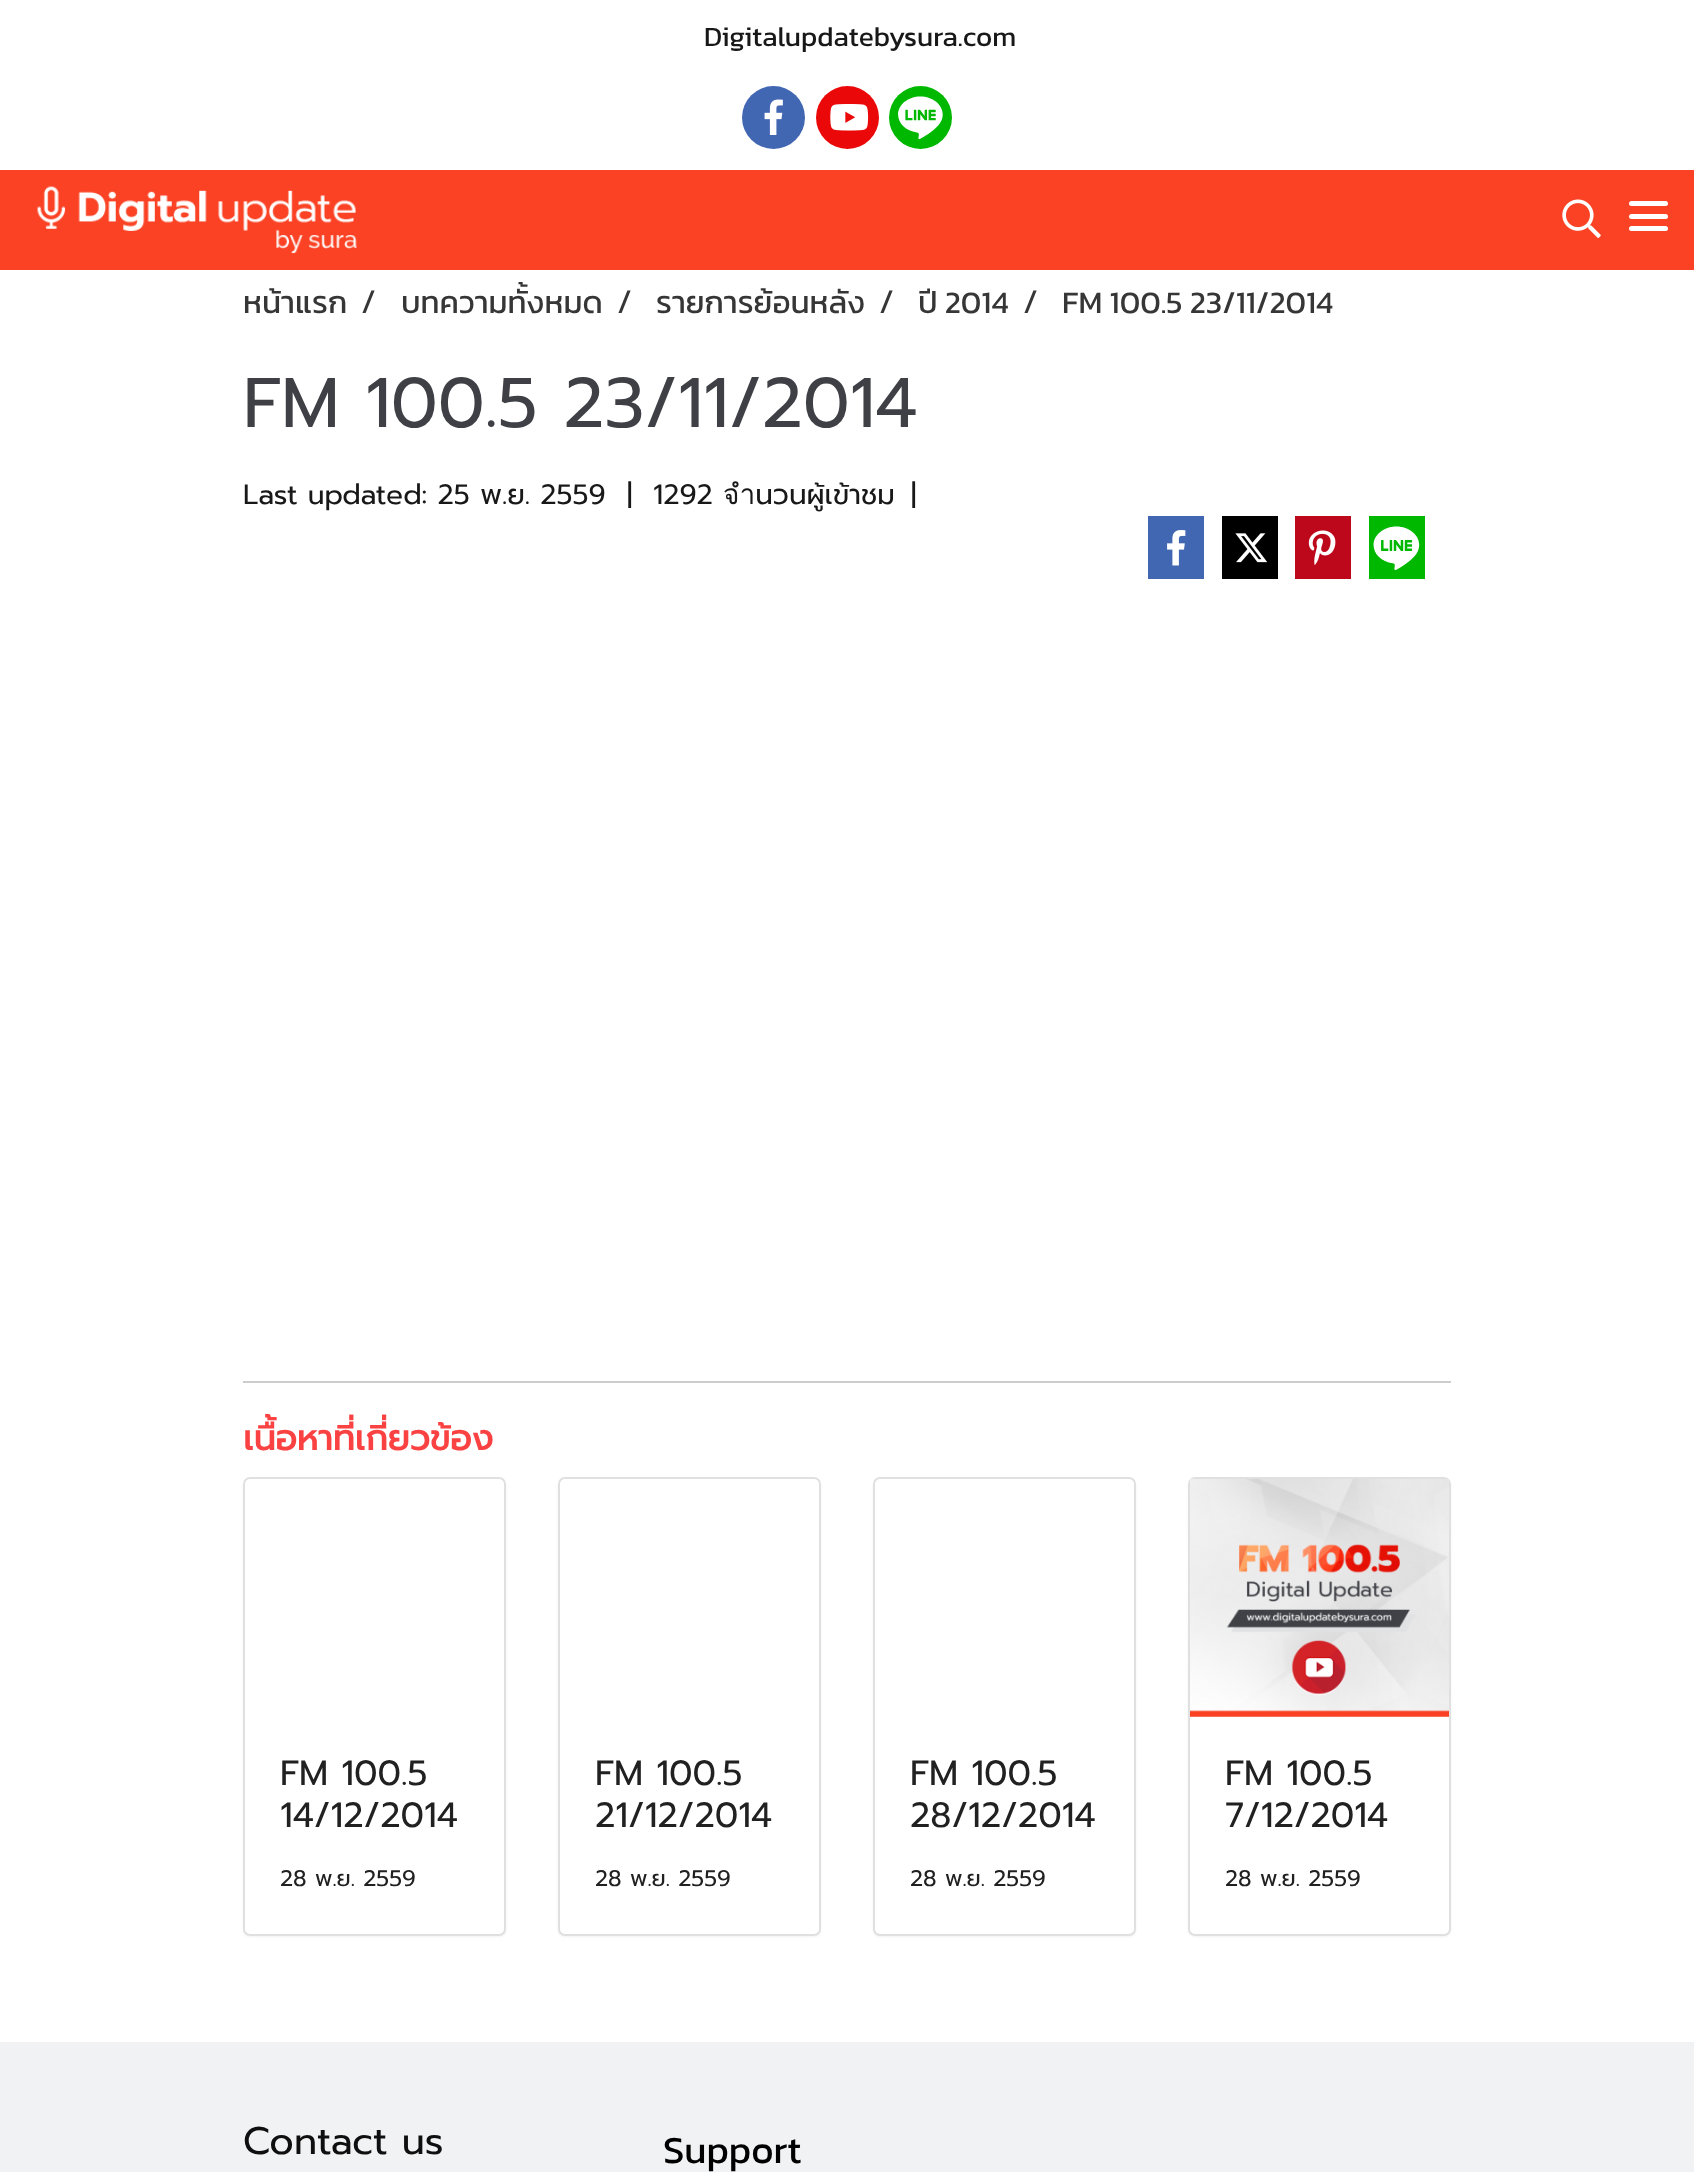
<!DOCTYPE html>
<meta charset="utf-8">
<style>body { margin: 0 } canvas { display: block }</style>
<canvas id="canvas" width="1694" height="2172"></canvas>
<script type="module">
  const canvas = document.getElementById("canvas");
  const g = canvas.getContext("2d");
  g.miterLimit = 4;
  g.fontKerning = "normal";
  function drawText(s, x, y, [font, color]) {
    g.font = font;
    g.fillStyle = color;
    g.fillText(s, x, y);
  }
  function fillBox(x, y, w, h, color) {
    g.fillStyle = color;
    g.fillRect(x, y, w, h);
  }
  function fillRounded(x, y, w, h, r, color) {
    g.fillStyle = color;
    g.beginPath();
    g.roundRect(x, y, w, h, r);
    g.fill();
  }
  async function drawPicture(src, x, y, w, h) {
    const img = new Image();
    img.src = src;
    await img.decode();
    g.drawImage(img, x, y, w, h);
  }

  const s1 = ["28px Kanit", "#181818"];
  const s2 = ["31.5px Kanit", "#363636"];
  const s3 = ["31.5px Prompt", "#363636"];
  const s4 = ["70px Prompt", "#3F4046"];
  const s5 = ["28px Prompt", "#181818"];
  const s6 = ["bold 35px Prompt", "#FB4242"];
  const s7 = ["35px Prompt", "#212121"];
  const s8 = ["22.5px Prompt", "#212121"];
  const s9 = ["38.5px Prompt", "#0F0F0F"];
  const s10 = ["38.5px Kanit", "#000000"];

  fillBox(0, 0, 1694, 2172, "#FFFFFF");
  fillBox(0, 170, 1694, 100, "#FB4224");
  drawText("Digitalupdatebysura.com", 704, 46, s1);
  g.fillStyle = "#4267B2";
  g.beginPath();
  g.arc(773.5, 117.5, 31.5, 0, Math.PI * 2);
  g.fill();
  await drawPicture("pic1.png", 764, 99, 19, 36);
  g.fillStyle = "#EB0808";
  g.beginPath();
  g.arc(847.5, 117.5, 31.5, 0, Math.PI * 2);
  g.fill();
  await drawPicture("pic2.png", 830, 103, 39, 28);
  g.fillStyle = "#00B800";
  g.beginPath();
  g.arc(920.5, 117.5, 31.5, 0, Math.PI * 2);
  g.fill();
  await drawPicture("pic3.png", 898, 86, 45, 53);
  await drawPicture("pic4.png", 37, 186, 320, 68);
  await drawPicture("pic5.png", 1562, 199, 39, 39);
  fillRounded(1629, 214, 39, 5, 2.5, "#FFFFFF");
  fillRounded(1629, 201, 39, 5, 2.5, "#FFFFFF");
  fillRounded(1629, 226, 39, 5, 2.5, "#FFFFFF");
  drawText("หน้าแรก", 243, 313, s2);
  drawText("/", 361, 313, s3);
  drawText("บทความทั้งหมด", 401, 313, s2);
  drawText("/", 617, 313, s3);
  drawText("รายการย้อนหลัง", 656, 313, s2);
  drawText("/", 879, 313, s3);
  drawText("ปี 2014", 918, 313, s2);
  drawText("/", 1023, 313, s3);
  drawText("FM 100.5 23/11/2014", 1062, 313, s2);
  drawText("FM 100.5 23/11/2014", 243, 427, s4);
  drawText("Last updated: 25 พ.ย. 2559", 243, 504, s5);
  drawText("|", 627, 504, s5);
  drawText("1292 จำนวนผู้เข้าชม", 653, 504, s5);
  drawText("|", 911, 504, s5);
  fillBox(1148, 516, 56, 63, "#4267B2");
  await drawPicture("pic6.png", 1167, 530, 19, 36);
  fillBox(1222, 516, 56, 63, "#000000");
  await drawPicture("pic7.png", 1235, 533, 33, 30);
  fillBox(1295, 516, 56, 63, "#BD081C");
  await drawPicture("pic8.png", 1308, 530, 28, 35);
  fillBox(1369, 516, 56, 63, "#00B800");
  await drawPicture("pic9.png", 1373, 526, 47, 44);
  fillBox(243, 1381, 1208, 2, "#CCCCCC");
  drawText("เนื้อหาที่เกี่ยวข้อง", 243, 1450, s6);
  g.fillStyle = "rgba(0, 0, 0, 0.05)";
  g.filter = "blur(1px)";
  g.beginPath();
  g.roundRect(243, 1479, 263, 458, 7);
  g.fill();
  g.filter = "none";
  fillRounded(243, 1477, 263, 459, 7, "#FFFFFF");
  g.beginPath();
  g.roundRect(244, 1478, 261, 457, 6);
  g.strokeStyle = "rgba(0, 0, 0, 0.12)";
  g.lineWidth = 2;
  g.stroke();
  drawText("FM 100.5", 280, 1785, s7);
  drawText("14/12/2014", 280, 1827, s7);
  drawText("28 พ.ย. 2559", 280, 1886, s8);
  g.fillStyle = "rgba(0, 0, 0, 0.05)";
  g.filter = "blur(1px)";
  g.beginPath();
  g.roundRect(558, 1479, 263, 458, 7);
  g.fill();
  g.filter = "none";
  fillRounded(558, 1477, 263, 459, 7, "#FFFFFF");
  g.beginPath();
  g.roundRect(559, 1478, 261, 457, 6);
  g.stroke();
  drawText("FM 100.5", 595, 1785, s7);
  drawText("21/12/2014", 595, 1827, s7);
  drawText("28 พ.ย. 2559", 595, 1886, s8);
  g.fillStyle = "rgba(0, 0, 0, 0.05)";
  g.filter = "blur(1px)";
  g.beginPath();
  g.roundRect(873, 1479, 263, 458, 7);
  g.fill();
  g.filter = "none";
  fillRounded(873, 1477, 263, 459, 7, "#FFFFFF");
  g.beginPath();
  g.roundRect(874, 1478, 261, 457, 6);
  g.stroke();
  drawText("FM 100.5", 910, 1785, s7);
  drawText("28/12/2014", 910, 1827, s7);
  drawText("28 พ.ย. 2559", 910, 1886, s8);
  g.fillStyle = "rgba(0, 0, 0, 0.05)";
  g.filter = "blur(1px)";
  g.beginPath();
  g.roundRect(1188, 1479, 263, 458, 7);
  g.fill();
  g.filter = "none";
  fillRounded(1188, 1477, 263, 459, 7, "#FFFFFF");
  g.beginPath();
  g.roundRect(1189, 1478, 261, 457, 6);
  g.stroke();
  await drawPicture("pic10.png", 1190, 1479, 259, 238);
  drawText("FM 100.5", 1225, 1785, s7);
  drawText("7/12/2014", 1225, 1827, s7);
  drawText("28 พ.ย. 2559", 1225, 1886, s8);
  fillBox(0, 2042, 1694, 130, "#F1F2F4");
  drawText("Contact us", 243, 2154, s9);
  drawText("Support", 663, 2163, s10);
</script>
